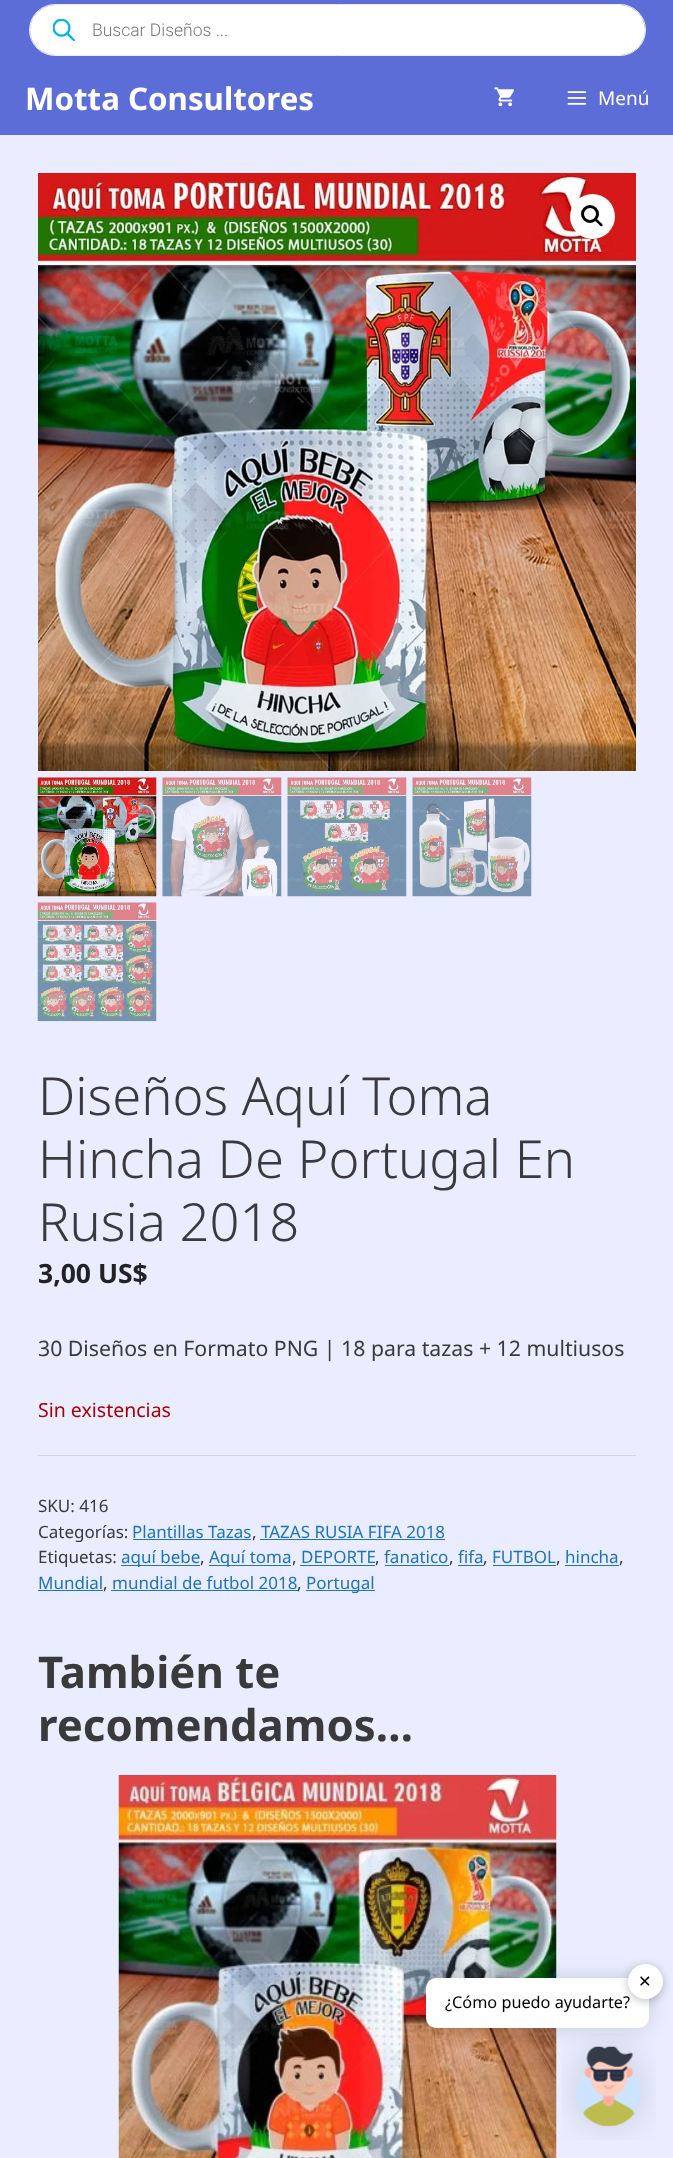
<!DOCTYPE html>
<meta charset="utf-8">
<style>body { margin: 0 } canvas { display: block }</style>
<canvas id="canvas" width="673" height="2158"></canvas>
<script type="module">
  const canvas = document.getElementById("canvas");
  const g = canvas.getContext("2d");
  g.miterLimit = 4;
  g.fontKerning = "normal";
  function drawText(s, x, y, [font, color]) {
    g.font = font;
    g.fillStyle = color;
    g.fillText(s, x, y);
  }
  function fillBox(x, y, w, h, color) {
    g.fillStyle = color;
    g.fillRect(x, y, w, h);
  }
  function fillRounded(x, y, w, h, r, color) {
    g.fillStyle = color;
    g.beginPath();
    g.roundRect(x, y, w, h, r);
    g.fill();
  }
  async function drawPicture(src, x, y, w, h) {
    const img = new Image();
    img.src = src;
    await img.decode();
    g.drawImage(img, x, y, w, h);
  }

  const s1 = ["300 17.5px Roboto", "#777777"];
  const s2 = ["bold 31.25px Noto Sans", "#FFFFFF"];
  const s3 = ["19px Noto Sans", "#FFFFFF"];
  const s4 = ["300 52.5px Noto Sans", "#3A3A3A"];
  const s5 = ["bold 26.5px Noto Sans", "#222222"];
  const s6 = ["21.25px Noto Sans", "#3A3A3A"];
  const s7 = ["19.5px Noto Sans", "#AA0000"];
  const s8 = ["17px Noto Sans", "#3A3A3A"];
  const s9 = ["17px Noto Sans", "#1E73BE"];
  const s10 = ["bold 43.75px Noto Sans", "#3A3A3A"];
  const s11 = ["16.25px Noto Sans", "#000000"];
  const s12 = ["16.25px DejaVu Sans", "#000000"];

  fillBox(0, 0, 673, 2158, "#5D6DD8");
  g.beginPath();
  g.roundRect(29.5, 4.5, 616, 51, 25.5);
  g.strokeStyle = "#EEEEEE";
  g.stroke();
  fillRounded(30, 5, 615, 50, 25, "#FFFFFF");
  await drawPicture("pic1.png", 53, 19, 22, 22);
  drawText("Buscar Diseños ...", 92, 36, s1);
  drawText("Motta Consultores", 25, 110, s2);
  await drawPicture("pic2.png", 494, 87, 20, 20);
  await drawPicture("pic3.png", 567, 91, 20, 14);
  drawText("Menú", 598, 105, s3);
  fillBox(0, 135, 673, 2023, "#EAEDFF");
  await drawPicture("pic4.png", 38, 173, 598, 598);
  g.fillStyle = "#FFFFFF";
  g.beginPath();
  g.arc(592.5, 216.5, 22.5, 0, Math.PI * 2);
  g.fill();
  g.beginPath();
  g.arc(590, 214, 7.5, 0, Math.PI * 2);
  g.strokeStyle = "#000000";
  g.lineWidth = 3;
  g.stroke();
  g.fillStyle = "#000000";
  g.beginPath();
  g.moveTo(595, 219);
  g.bezierCurveTo(596.5, 217.5, 599, 221, 599.5, 221.5);
  g.bezierCurveTo(600.5, 222.5, 603.5, 224.5, 602.5, 226);
  g.bezierCurveTo(601, 227.5, 598.5, 224, 598, 223.5);
  g.bezierCurveTo(597, 222.5, 594, 220.5, 595, 219);
  g.closePath();
  g.fill();
  await drawPicture("pic5.png", 37, 777, 120, 120);
  await drawPicture("pic6.png", 162, 777, 120, 120);
  await drawPicture("pic7.png", 287, 777, 120, 120);
  await drawPicture("pic8.png", 412, 777, 120, 120);
  await drawPicture("pic9.png", 37, 902, 120, 120);
  drawText("Diseños Aquí Toma", 38, 1115, s4);
  drawText("Hincha De Portugal En", 38, 1178, s4);
  drawText("Rusia 2018", 38, 1241, s4);
  drawText("3,00 US$", 38, 1283, s5);
  drawText("30 Diseños en Formato PNG | 18 para tazas + 12 multiusos", 38, 1356, s6);
  drawText("Sin existencias", 38, 1417, s7);
  fillBox(38, 1455, 598, 1, "#D3D5E6");
  drawText("SKU: 416", 38, 1512, s8);
  drawText("Categorías:", 38, 1538, s8);
  drawText("Plantillas Tazas", 132, 1538, s9);
  fillBox(133, 1539, 118, 1, "#1E73BE");
  drawText(",", 252, 1538, s8);
  drawText("TAZAS RUSIA FIFA 2018", 261, 1538, s9);
  fillBox(260, 1539, 185, 1, "#1E73BE");
  drawText("Etiquetas:", 38, 1563, s8);
  fillBox(121, 1565, 79, 1, "#1E73BE");
  drawText("aquí bebe", 121, 1563, s9);
  drawText(",", 200, 1563, s8);
  fillBox(209, 1565, 82, 1, "#1E73BE");
  drawText("Aquí toma", 209, 1563, s9);
  drawText(",", 292, 1563, s8);
  drawText("DEPORTE", 301, 1563, s9);
  fillBox(300, 1565, 75, 1, "#1E73BE");
  drawText(",", 375, 1563, s8);
  drawText("fanatico", 384, 1563, s9);
  fillBox(385, 1565, 64, 1, "#1E73BE");
  drawText(",", 449, 1563, s8);
  drawText("fifa", 458, 1563, s9);
  fillBox(458, 1565, 26, 1, "#1E73BE");
  drawText(",", 483, 1563, s8);
  drawText("FUTBOL", 492, 1563, s9);
  fillBox(493, 1565, 63, 1, "#1E73BE");
  drawText(",", 556, 1563, s8);
  drawText("hincha", 565, 1563, s9);
  fillBox(565, 1565, 54, 1, "#1E73BE");
  drawText(",", 619, 1563, s8);
  drawText("Mundial", 38, 1589, s9);
  fillBox(38, 1590, 65, 1, "#1E73BE");
  drawText(",", 103, 1589, s8);
  drawText("mundial de futbol 2018", 112, 1589, s9);
  fillBox(111, 1590, 187, 1, "#1E73BE");
  drawText(",", 297, 1589, s8);
  fillBox(306, 1590, 69, 1, "#1E73BE");
  drawText("Portugal", 306, 1589, s9);
  drawText("También te", 38, 1688, s10);
  drawText("recomendamos…", 38, 1741, s10);
  await drawPicture("pic10.png", 118, 1775, 439, 383);
  await drawPicture("pic11.png", 562, 2033, 94, 107);
  g.fillStyle = "rgba(0, 0, 0, 0.15)";
  g.filter = "blur(9.5px)";
  g.beginPath();
  g.roundRect(426, 1978, 223, 50, 10);
  g.fill();
  g.filter = "none";
  fillRounded(426, 1978, 223, 50, 10, "#FFFFFF");
  g.fillStyle = "rgba(0, 0, 0, 0.25)";
  g.filter = "blur(5px)";
  g.beginPath();
  g.roundRect(628, 1966, 35, 35, 17.5);
  g.fill();
  g.filter = "none";
  drawText("¿Cómo puedo ayudarte?", 445, 2008, s11);
  g.fillStyle = "#FFFFFF";
  g.beginPath();
  g.arc(645.5, 1981.5, 17.5, 0, Math.PI * 2);
  g.fill();
  drawText("✕", 638, 1987, s12);
</script>
